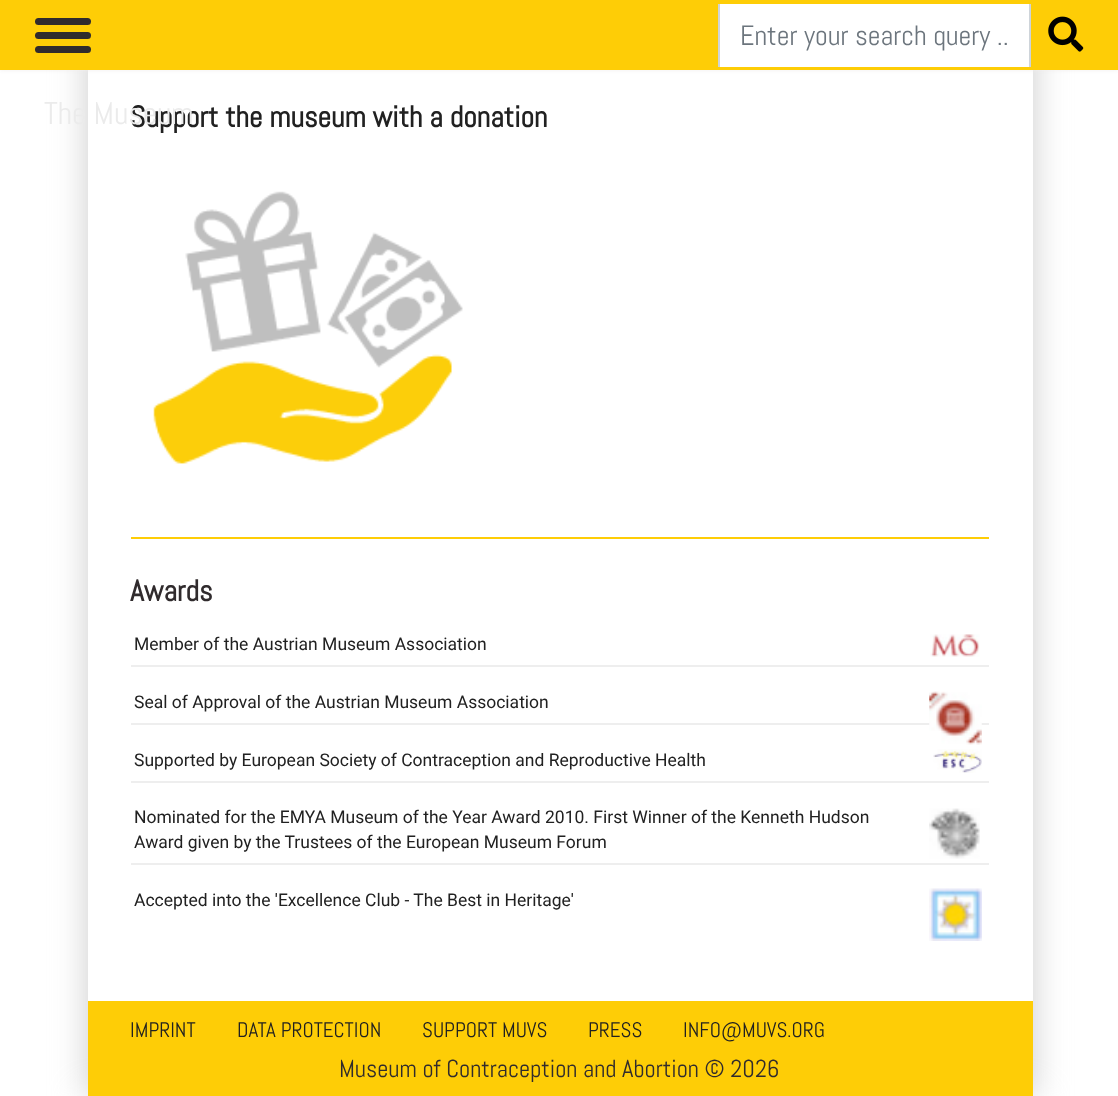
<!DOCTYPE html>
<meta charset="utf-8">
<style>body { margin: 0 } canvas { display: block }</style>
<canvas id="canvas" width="1118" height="1096"></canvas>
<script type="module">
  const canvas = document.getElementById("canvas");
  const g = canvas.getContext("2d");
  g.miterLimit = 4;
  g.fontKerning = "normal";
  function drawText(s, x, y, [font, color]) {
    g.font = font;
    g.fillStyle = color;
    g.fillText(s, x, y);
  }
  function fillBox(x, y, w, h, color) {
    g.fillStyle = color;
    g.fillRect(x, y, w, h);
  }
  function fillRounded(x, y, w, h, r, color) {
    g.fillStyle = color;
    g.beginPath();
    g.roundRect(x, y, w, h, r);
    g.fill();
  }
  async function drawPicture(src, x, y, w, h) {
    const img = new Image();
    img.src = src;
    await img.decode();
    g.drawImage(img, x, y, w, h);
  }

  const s1 = ["28px Abel", "#6C757D"];
  const s2 = ["bold 29.75px Abel", "#212121"];
  const s3 = ["31.5px Abel", "#EBEBEB"];
  const s4 = ["bold 29.75px Abel", "#302B2D"];
  const s5 = ["17.5px Roboto", "#212121"];
  const s6 = ["21px Abel", "#212121"];
  const s7 = ["24.5px Abel", "#302B2D"];

  fillBox(0, 0, 1118, 1096, "#FFFFFF");
  g.save();
  g.beginPath();
  g.moveTo(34, 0);
  g.lineTo(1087, 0);
  g.lineTo(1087, 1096);
  g.lineTo(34, 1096);
  g.closePath();
  g.moveTo(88, -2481);
  g.lineTo(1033, -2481);
  g.lineTo(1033, 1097);
  g.lineTo(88, 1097);
  g.closePath();
  g.clip("evenodd");
  g.fillStyle = "#CCCCCC";
  g.filter = "blur(17.5px)";
  g.beginPath();
  g.rect(88, -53, 945, 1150);
  g.fill();
  g.filter = "none";
  g.restore();
  g.fillStyle = "#EFEDED";
  g.filter = "blur(2px)";
  g.beginPath();
  g.rect(0, 0, 1118, 70);
  g.fill();
  g.filter = "none";
  fillBox(0, 0, 1118, 70, "#FECD06");
  fillRounded(35, 18, 56, 7, 3.5, "#302B2D");
  fillRounded(35, 32, 56, 7, 3.5, "#302B2D");
  fillRounded(35, 46, 56, 7, 3.5, "#302B2D");
  fillBox(720, 4, 309, 63, "#FFFFFF");
  fillBox(1029, 4, 2, 63, "#CED4DA");
  fillBox(718, 4, 2, 63, "#CED4DA");
  drawText("Enter your search query ..", 740, 45, s1);
  await drawPicture("pic1.png", 1048, 16, 36, 36);
  drawText("Support the museum with a donation", 130, 127, s2);
  drawText("The Museum", 44, 124, s3);
  await drawPicture("pic2.png", 153, 191, 310, 273);
  fillBox(131, 537, 858, 2, "#FECD06");
  drawText("Awards", 130, 601, s4);
  fillBox(131, 665, 858, 2, "#EEEEEE");
  drawText("Member of the Austrian Museum Association", 134, 650, s5);
  await drawPicture("pic3.png", 930, 634, 50, 23);
  fillBox(131, 723, 858, 2, "#EEEEEE");
  drawText("Seal of Approval of the Austrian Museum Association", 134, 708, s5);
  await drawPicture("pic4.png", 929, 691, 53, 54);
  fillBox(131, 781, 858, 2, "#EEEEEE");
  drawText("Supported by European Society of Contraception and Reproductive Health", 134, 766, s5);
  await drawPicture("pic5.png", 933, 749, 49, 24);
  fillBox(131, 863, 858, 2, "#EEEEEE");
  drawText("Nominated for the EMYA Museum of the Year Award 2010. First Winner of the Kenneth Hudson", 134, 823, s5);
  await drawPicture("pic6.png", 929, 808, 51, 51);
  drawText("Award given by the Trustees of the European Museum Forum", 134, 848, s5);
  drawText("Accepted into the 'Excellence Club - The Best in Heritage'", 134, 906, s5);
  await drawPicture("pic7.png", 929, 888, 53, 53);
  fillBox(88, 1001, 945, 95, "#FECD06");
  drawText("IMPRINT", 130, 1037, s6);
  drawText("DATA PROTECTION", 237, 1037, s6);
  drawText("SUPPORT MUVS", 422, 1037, s6);
  drawText("PRESS", 588, 1037, s6);
  drawText("INFO@MUVS.ORG", 683, 1037, s6);
  drawText("Museum of Contraception and Abortion © 2026", 339, 1077, s7);
</script>
